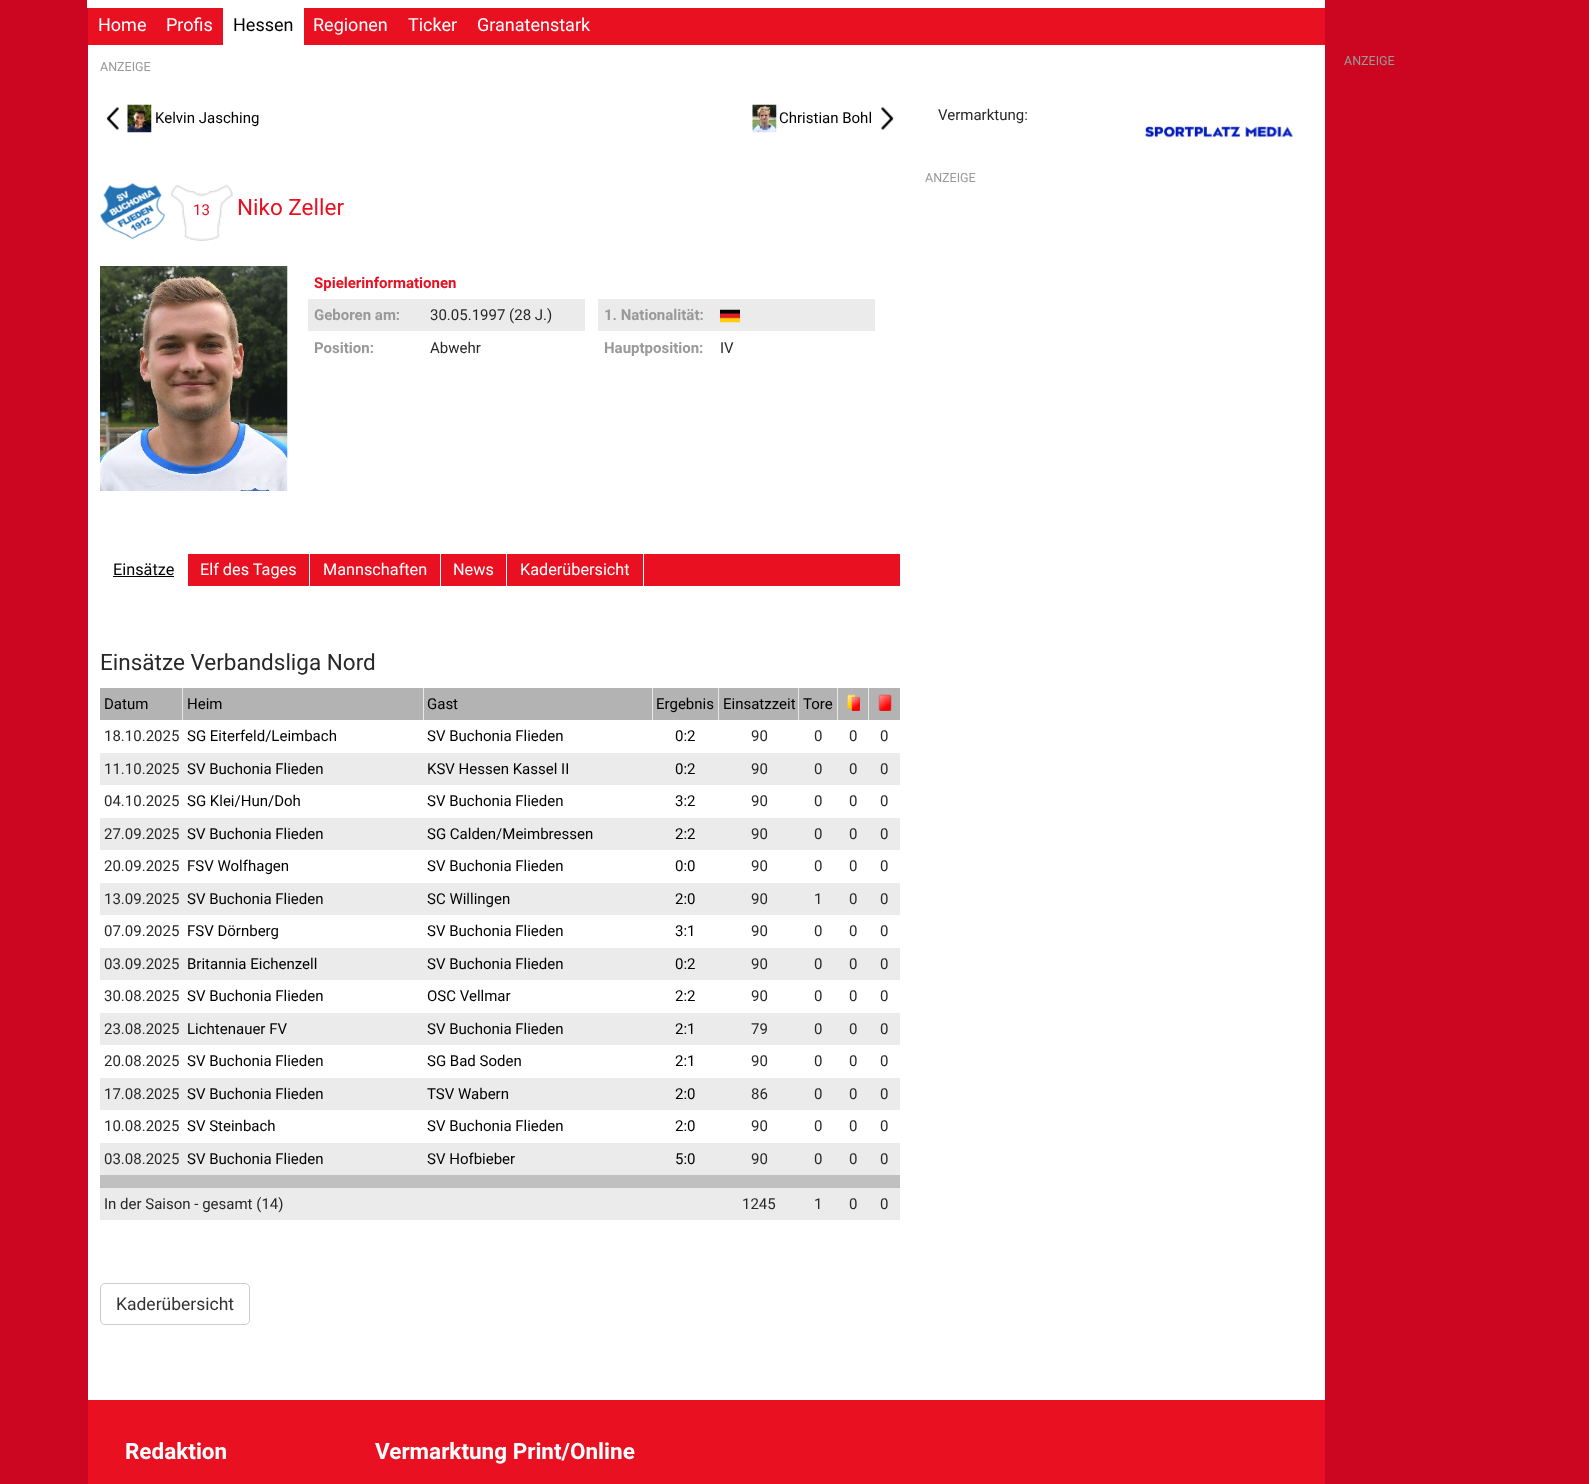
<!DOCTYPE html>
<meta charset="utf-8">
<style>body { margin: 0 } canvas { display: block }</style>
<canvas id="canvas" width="1589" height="1484"></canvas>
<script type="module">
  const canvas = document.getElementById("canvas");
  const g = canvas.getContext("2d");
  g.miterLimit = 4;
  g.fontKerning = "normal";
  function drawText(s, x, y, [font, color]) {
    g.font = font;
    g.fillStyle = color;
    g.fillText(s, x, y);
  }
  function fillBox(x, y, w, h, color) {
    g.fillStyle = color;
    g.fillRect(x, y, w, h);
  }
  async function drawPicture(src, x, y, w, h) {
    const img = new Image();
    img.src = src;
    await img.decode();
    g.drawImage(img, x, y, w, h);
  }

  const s1 = ["18px Roboto", "#FFFFFF"];
  const s2 = ["18px Roboto", "#000000"];
  const s3 = ["12.5px Roboto", "#999999"];
  const s4 = ["15px Roboto", "#000000"];
  const s5 = ["15px Roboto", "#E91021"];
  const s6 = ["22.5px Roboto", "#E91021"];
  const s7 = ["bold 15px Roboto", "#E91021"];
  const s8 = ["bold 15px Roboto", "#999999"];
  const s9 = ["15px Roboto", "#282828"];
  const s10 = ["16.25px Roboto", "#000000"];
  const s11 = ["16.25px Roboto", "#FFFFFF"];
  const s12 = ["22.5px Roboto", "#282828"];
  const s13 = ["17.5px Roboto", "#333333"];
  const s14 = ["bold 22.5px Roboto", "#FFFFFF"];

  fillBox(0, 0, 1589, 1484, "#CC0621");
  fillBox(88, 45, 1237, 1355, "#FFFFFF");
  fillBox(87, 0, 1238, 8, "#FFFFFF");
  fillBox(88, 8, 1237, 37, "#E91021");
  drawText("Home", 98, 31, s1);
  drawText("Profis", 166, 31, s1);
  fillBox(223, 8, 81, 37, "#FFFFFF");
  drawText("Hessen", 233, 31, s2);
  drawText("Regionen", 313, 31, s1);
  drawText("Ticker", 408, 31, s1);
  drawText("Granatenstark", 477, 31, s1);
  drawText("ANZEIGE", 100, 71, s3);
  await drawPicture("pic1.png", 106, 106, 14, 25);
  await drawPicture("pic2.png", 127, 104, 25, 29);
  drawText("Kelvin Jasching", 155, 123, s4);
  await drawPicture("pic3.png", 752, 104, 25, 29);
  drawText("Christian Bohl", 779, 123, s4);
  await drawPicture("pic4.png", 880, 106, 14, 25);
  await drawPicture("pic5.png", 100, 183, 65, 56);
  await drawPicture("pic6.png", 171, 184, 62, 57);
  drawText("13", 193, 215, s5);
  drawText("Niko Zeller", 237, 215, s6);
  await drawPicture("pic7.png", 100, 266, 188, 225);
  drawText("Spielerinformationen", 314, 288, s7);
  fillBox(308, 299, 277, 32, "#EBEBEB");
  drawText("Geboren am:", 314, 320, s8);
  drawText("30.05.1997 (28 J.)", 430, 320, s9);
  fillBox(598, 299, 277, 32, "#EBEBEB");
  drawText("1. Nationalität:", 604, 320, s8);
  await drawPicture("pic8.png", 720, 309, 20, 14);
  drawText("Position:", 314, 353, s8);
  drawText("Abwehr", 430, 353, s9);
  drawText("Hauptposition:", 604, 353, s8);
  drawText("IV", 720, 353, s9);
  fillBox(188, 554, 712, 32, "#E91021");
  drawText("Einsätze", 113, 575, s10);
  fillBox(113, 576, 61, 1, "#000000");
  fillBox(309, 554, 1, 32, "#FFFFFF");
  drawText("Elf des Tages", 200, 575, s11);
  fillBox(440, 554, 1, 32, "#FFFFFF");
  drawText("Mannschaften", 323, 575, s11);
  fillBox(506, 554, 1, 32, "#FFFFFF");
  drawText("News", 453, 575, s11);
  fillBox(643, 554, 1, 32, "#FFFFFF");
  drawText("Kaderübersicht", 520, 575, s11);
  drawText("Einsätze Verbandsliga Nord", 100, 670, s12);
  fillBox(100, 688, 82, 32, "#B3B3B3");
  fillBox(182, 688, 1, 32, "#E8E8E8");
  drawText("Datum", 104, 709, s4);
  fillBox(183, 688, 240, 32, "#B3B3B3");
  drawText("Heim", 187, 709, s4);
  fillBox(423, 688, 1, 32, "#E8E8E8");
  fillBox(424, 688, 228, 32, "#B3B3B3");
  fillBox(652, 688, 1, 32, "#E8E8E8");
  drawText("Gast", 427, 709, s4);
  fillBox(653, 688, 65, 32, "#B3B3B3");
  fillBox(718, 688, 1, 32, "#E8E8E8");
  drawText("Ergebnis", 656, 709, s4);
  fillBox(719, 688, 79, 32, "#B3B3B3");
  fillBox(798, 688, 1, 32, "#E8E8E8");
  drawText("Einsatzzeit", 723, 709, s4);
  fillBox(799, 688, 38, 32, "#B3B3B3");
  fillBox(837, 688, 1, 32, "#E8E8E8");
  drawText("Tore", 803, 709, s4);
  fillBox(838, 688, 30, 32, "#B3B3B3");
  fillBox(868, 688, 1, 32, "#E8E8E8");
  await drawPicture("pic9.png", 847, 694, 13, 17);
  fillBox(869, 688, 31, 32, "#B3B3B3");
  await drawPicture("pic10.png", 878, 694, 14, 17);
  drawText("18.10.2025", 104, 741, s9);
  drawText("SG Eiterfeld/Leimbach", 187, 741, s4);
  drawText("SV Buchonia Flieden", 427, 741, s4);
  drawText("0:2", 675, 741, s4);
  drawText("90", 751, 741, s9);
  drawText("0", 814, 741, s9);
  drawText("0", 849, 741, s9);
  drawText("0", 880, 741, s9);
  fillBox(100, 753, 800, 32, "#EBEBEB");
  drawText("11.10.2025", 104, 774, s9);
  drawText("SV Buchonia Flieden", 187, 774, s4);
  drawText("KSV Hessen Kassel II", 427, 774, s4);
  drawText("0:2", 675, 774, s4);
  drawText("90", 751, 774, s9);
  drawText("0", 814, 774, s9);
  drawText("0", 849, 774, s9);
  drawText("0", 880, 774, s9);
  drawText("04.10.2025", 104, 806, s9);
  drawText("SG Klei/Hun/Doh", 187, 806, s4);
  drawText("SV Buchonia Flieden", 427, 806, s4);
  drawText("3:2", 675, 806, s4);
  drawText("90", 751, 806, s9);
  drawText("0", 814, 806, s9);
  drawText("0", 849, 806, s9);
  drawText("0", 880, 806, s9);
  fillBox(100, 818, 800, 32, "#EBEBEB");
  drawText("27.09.2025", 104, 839, s9);
  drawText("SV Buchonia Flieden", 187, 839, s4);
  drawText("SG Calden/Meimbressen", 427, 839, s4);
  drawText("2:2", 675, 839, s4);
  drawText("90", 751, 839, s9);
  drawText("0", 814, 839, s9);
  drawText("0", 849, 839, s9);
  drawText("0", 880, 839, s9);
  drawText("20.09.2025", 104, 871, s9);
  drawText("FSV Wolfhagen", 187, 871, s4);
  drawText("SV Buchonia Flieden", 427, 871, s4);
  drawText("0:0", 675, 871, s4);
  drawText("90", 751, 871, s9);
  drawText("0", 814, 871, s9);
  drawText("0", 849, 871, s9);
  drawText("0", 880, 871, s9);
  fillBox(100, 883, 800, 32, "#EBEBEB");
  drawText("13.09.2025", 104, 904, s9);
  drawText("SV Buchonia Flieden", 187, 904, s4);
  drawText("SC Willingen", 427, 904, s4);
  drawText("2:0", 675, 904, s4);
  drawText("90", 751, 904, s9);
  drawText("1", 814, 904, s9);
  drawText("0", 849, 904, s9);
  drawText("0", 880, 904, s9);
  drawText("07.09.2025", 104, 936, s9);
  drawText("FSV Dörnberg", 187, 936, s4);
  drawText("SV Buchonia Flieden", 427, 936, s4);
  drawText("3:1", 675, 936, s4);
  drawText("90", 751, 936, s9);
  drawText("0", 814, 936, s9);
  drawText("0", 849, 936, s9);
  drawText("0", 880, 936, s9);
  fillBox(100, 948, 800, 32, "#EBEBEB");
  drawText("03.09.2025", 104, 969, s9);
  drawText("Britannia Eichenzell", 187, 969, s4);
  drawText("SV Buchonia Flieden", 427, 969, s4);
  drawText("0:2", 675, 969, s4);
  drawText("90", 751, 969, s9);
  drawText("0", 814, 969, s9);
  drawText("0", 849, 969, s9);
  drawText("0", 880, 969, s9);
  drawText("30.08.2025", 104, 1001, s9);
  drawText("SV Buchonia Flieden", 187, 1001, s4);
  drawText("OSC Vellmar", 427, 1001, s4);
  drawText("2:2", 675, 1001, s4);
  drawText("90", 751, 1001, s9);
  drawText("0", 814, 1001, s9);
  drawText("0", 849, 1001, s9);
  drawText("0", 880, 1001, s9);
  fillBox(100, 1013, 800, 32, "#EBEBEB");
  drawText("23.08.2025", 104, 1034, s9);
  drawText("Lichtenauer FV", 187, 1034, s4);
  drawText("SV Buchonia Flieden", 427, 1034, s4);
  drawText("2:1", 675, 1034, s4);
  drawText("79", 751, 1034, s9);
  drawText("0", 814, 1034, s9);
  drawText("0", 849, 1034, s9);
  drawText("0", 880, 1034, s9);
  drawText("20.08.2025", 104, 1066, s9);
  drawText("SV Buchonia Flieden", 187, 1066, s4);
  drawText("SG Bad Soden", 427, 1066, s4);
  drawText("2:1", 675, 1066, s4);
  drawText("90", 751, 1066, s9);
  drawText("0", 814, 1066, s9);
  drawText("0", 849, 1066, s9);
  drawText("0", 880, 1066, s9);
  fillBox(100, 1078, 800, 32, "#EBEBEB");
  drawText("17.08.2025", 104, 1099, s9);
  drawText("SV Buchonia Flieden", 187, 1099, s4);
  drawText("TSV Wabern", 427, 1099, s4);
  drawText("2:0", 675, 1099, s4);
  drawText("86", 751, 1099, s9);
  drawText("0", 814, 1099, s9);
  drawText("0", 849, 1099, s9);
  drawText("0", 880, 1099, s9);
  drawText("10.08.2025", 104, 1131, s9);
  drawText("SV Steinbach", 187, 1131, s4);
  drawText("SV Buchonia Flieden", 427, 1131, s4);
  drawText("2:0", 675, 1131, s4);
  drawText("90", 751, 1131, s9);
  drawText("0", 814, 1131, s9);
  drawText("0", 849, 1131, s9);
  drawText("0", 880, 1131, s9);
  fillBox(100, 1143, 800, 32, "#EBEBEB");
  drawText("03.08.2025", 104, 1164, s9);
  drawText("SV Buchonia Flieden", 187, 1164, s4);
  drawText("SV Hofbieber", 427, 1164, s4);
  drawText("5:0", 675, 1164, s4);
  drawText("90", 751, 1164, s9);
  drawText("0", 814, 1164, s9);
  drawText("0", 849, 1164, s9);
  drawText("0", 880, 1164, s9);
  fillBox(100, 1175, 800, 13, "#C0C0C0");
  fillBox(100, 1188, 800, 32, "#EBEBEB");
  drawText("In der Saison - gesamt (14)", 104, 1209, s9);
  drawText("1245", 742, 1209, s9);
  drawText("1", 814, 1209, s9);
  drawText("0", 849, 1209, s9);
  drawText("0", 880, 1209, s9);
  g.beginPath();
  g.roundRect(100.5, 1283.5, 149, 41, 4.5);
  g.strokeStyle = "#CCCCCC";
  g.stroke();
  drawText("Kaderübersicht", 116, 1310, s13);
  drawText("Vermarktung:", 938, 120, s9);
  await drawPicture("pic11.png", 1145, 126, 148, 12);
  drawText("ANZEIGE", 925, 182, s3);
  drawText("ANZEIGE", 1344, 65, s3);
  fillBox(88, 1400, 1237, 84, "#E91021");
  drawText("Redaktion", 125, 1459, s14);
  drawText("Vermarktung Print/Online", 375, 1459, s14);
</script>
